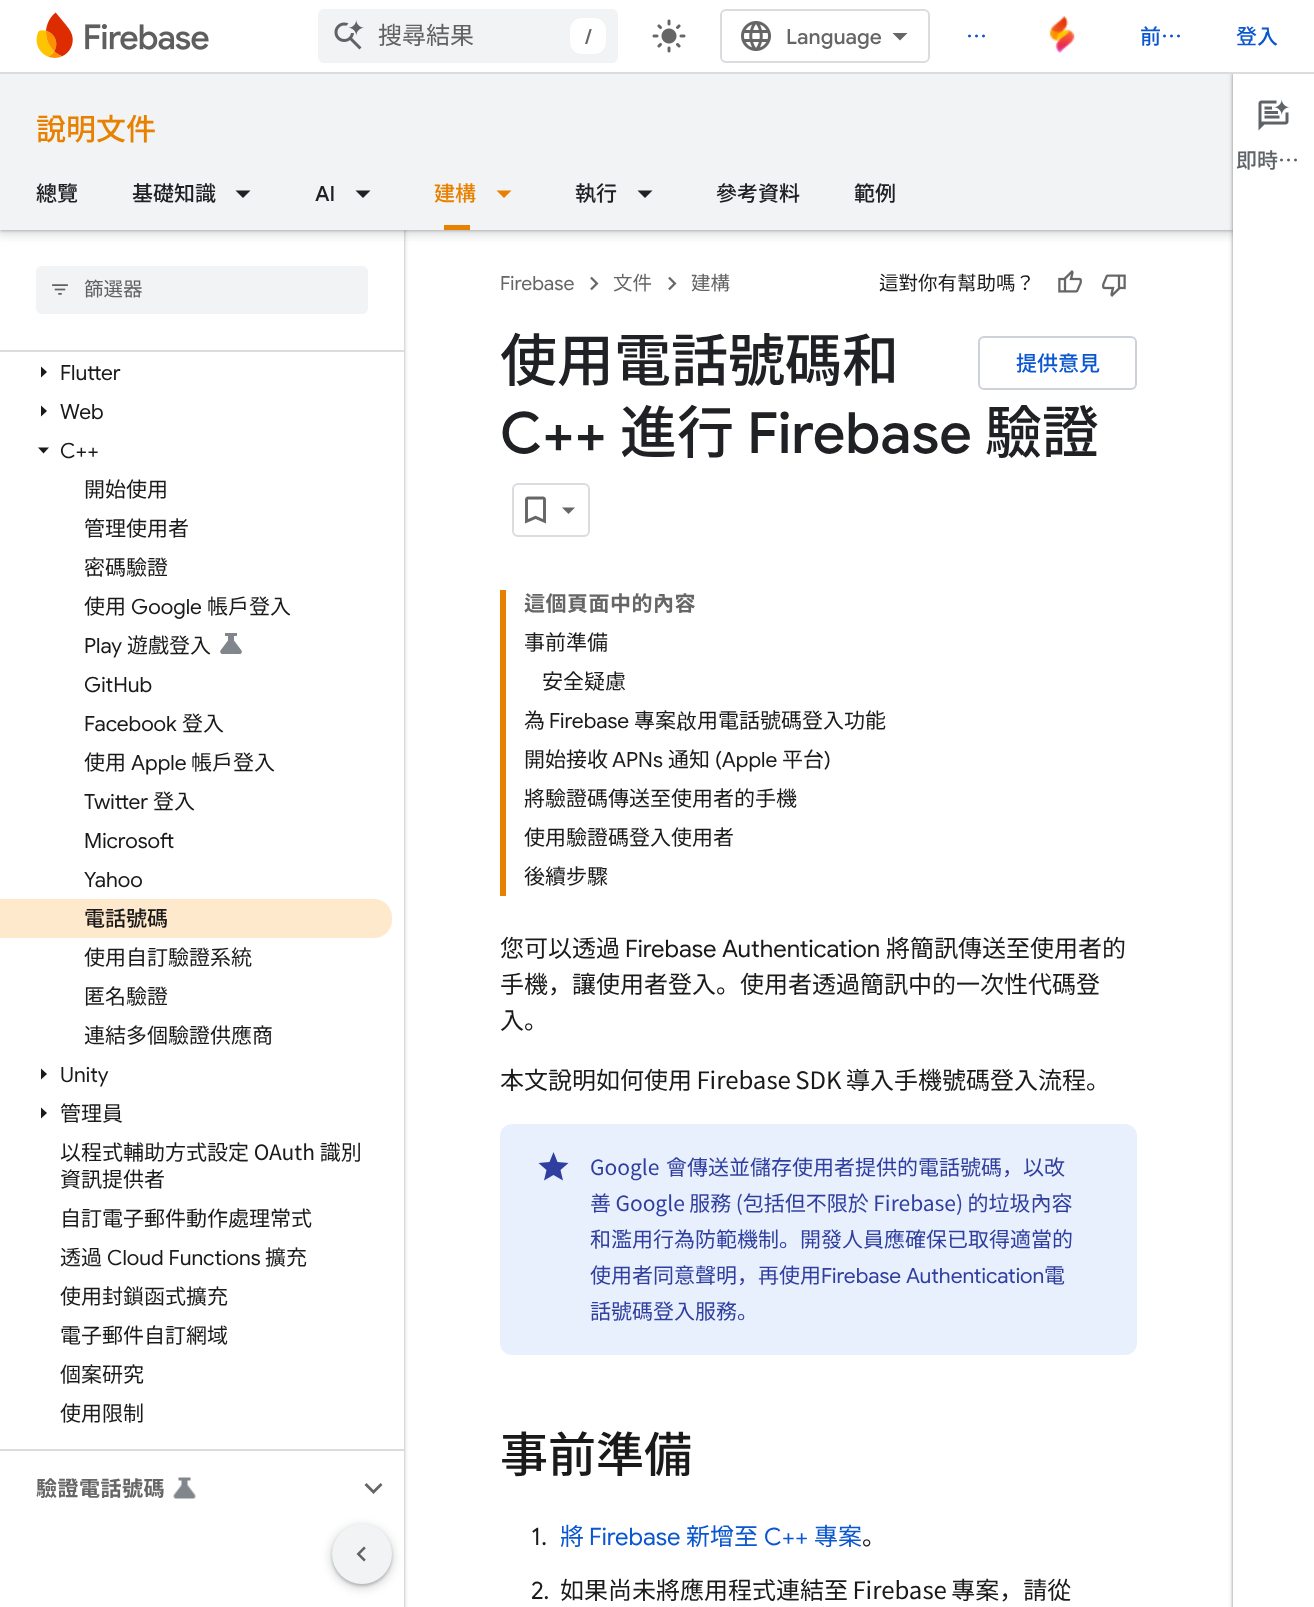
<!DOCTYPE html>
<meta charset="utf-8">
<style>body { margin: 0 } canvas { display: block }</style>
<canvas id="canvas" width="1314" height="1607"></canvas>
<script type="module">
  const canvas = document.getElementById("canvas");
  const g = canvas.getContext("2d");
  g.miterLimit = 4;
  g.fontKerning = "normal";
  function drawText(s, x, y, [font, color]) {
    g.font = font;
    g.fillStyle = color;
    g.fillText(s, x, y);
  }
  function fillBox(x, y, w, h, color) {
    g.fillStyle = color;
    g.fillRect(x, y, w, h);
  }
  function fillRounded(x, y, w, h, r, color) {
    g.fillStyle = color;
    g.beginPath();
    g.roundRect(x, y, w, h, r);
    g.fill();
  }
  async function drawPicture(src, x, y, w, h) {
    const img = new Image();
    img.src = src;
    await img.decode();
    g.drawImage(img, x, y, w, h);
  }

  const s1 = ["24px Noto Sans JP", "#606162"];
  const s2 = ["500 21px Google Sans", "#666666"];
  const s3 = ["500 21px Noto Sans JP", "#0B57D0"];
  const s4 = ["500 30px Noto Sans JP", "#E88000"];
  const s5 = ["500 21px Noto Sans JP", "#202124"];
  const s6 = ["500 21px Google Sans", "#202124"];
  const s7 = ["500 21px Noto Sans JP", "#E88000"];
  const s8 = ["19.5px Noto Sans JP", "#606162"];
  const s9 = ["21px Google Sans", "#1A1A1A"];
  const s10 = ["21px Noto Sans JP", "#1A1A1A"];
  const s11 = ["500 21px Noto Sans JP", "#1A1A1A"];
  const s12 = ["bold 21px Noto Sans JP", "#666666"];
  const s13 = ["500 21px Noto Sans JP", "#5F6368"];
  const s14 = ["19.5px Google Sans", "#666666"];
  const s15 = ["19.5px Noto Sans JP", "#666666"];
  const s16 = ["19.5px Noto Sans JP", "#1A1A1A"];
  const s17 = ["500 57px Noto Sans JP", "#202124"];
  const s18 = ["500 57px Google Sans", "#202124"];
  const s19 = ["500 21px WenQuanYi Zen Hei", "#1A1A1A"];
  const s20 = ["24px Noto Sans JP", "#1A1A1A"];
  const s21 = ["24px Google Sans", "#1A1A1A"];
  const s22 = ["21px Noto Sans JP", "#303F9F"];
  const s23 = ["21px Google Sans", "#303F9F"];
  const s24 = ["500 48px Noto Sans JP", "#1A1A1A"];
  const s25 = ["24px Noto Sans JP", "#0B57D0"];
  const s26 = ["24px Google Sans", "#0B57D0"];

  fillBox(0, 0, 1314, 1607, "#FFFFFF");
  g.fillStyle = "rgba(60, 64, 67, 0.15)";
  g.filter = "blur(2px)";
  g.beginPath();
  g.rect(-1, 0, 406, 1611);
  g.fill();
  g.filter = "none";
  g.fillStyle = "rgba(60, 64, 67, 0.3)";
  g.filter = "blur(1.5px)";
  g.beginPath();
  g.rect(0, 2, 404, 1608);
  g.fill();
  g.filter = "none";
  fillBox(0, 352, 404, 1255, "#FFFFFF");
  fillBox(0, 230, 404, 120, "#FFFFFF");
  g.fillStyle = "rgba(60, 64, 67, 0.15)";
  g.filter = "blur(4.5px)";
  g.beginPath();
  g.rect(-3, 74, 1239, 162);
  g.fill();
  g.filter = "none";
  g.fillStyle = "rgba(60, 64, 67, 0.3)";
  g.filter = "blur(1.5px)";
  g.beginPath();
  g.rect(0, 75, 1233, 156);
  g.fill();
  g.filter = "none";
  fillBox(0, 74, 1233, 156, "#F1F3F4");
  g.fillStyle = "rgba(0, 0, 0, 0.15)";
  g.filter = "blur(2px)";
  g.beginPath();
  g.rect(1232, 72, 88, 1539);
  g.fill();
  g.filter = "none";
  g.fillStyle = "rgba(0, 0, 0, 0.3)";
  g.filter = "blur(1.5px)";
  g.beginPath();
  g.rect(1233, 74, 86, 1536);
  g.fill();
  g.filter = "none";
  fillBox(0, 0, 1314, 72, "#FFFFFF");
  fillBox(0, 72, 1314, 2, "#DADCE0");
  await drawPicture("pic1.png", 36, 12, 173, 46);
  fillRounded(318, 9, 300, 54, 6, "#F1F3F4");
  await drawPicture("pic2.png", 334, 20, 30, 30);
  drawText("搜尋結果", 378, 44, s1);
  fillRounded(570, 18, 36, 36, 12, "#FFFFFF");
  drawText("/", 585, 44, s2);
  await drawPicture("pic3.png", 652, 19, 34, 34);
  g.beginPath();
  g.roundRect(721, 10, 208, 52, 5);
  g.strokeStyle = "#DADCE0";
  g.lineWidth = 2;
  g.stroke();
  await drawPicture("pic4.png", 741, 21, 30, 30);
  drawText("Language", 786, 44, s2);
  g.beginPath();
  g.moveTo(900, 40.5);
  g.lineTo(892.5, 33);
  g.lineTo(907.5, 33);
  g.closePath();
  g.fill();
  drawText("…", 966, 44, s3);
  await drawPicture("pic5.png", 1049, 16, 26, 37);
  drawText("前…", 1140, 44, s3);
  drawText("登入", 1236, 44, s3);
  drawText("說明文件", 36, 140, s4);
  drawText("總覽", 36, 201, s5);
  drawText("基礎知識", 132, 201, s5);
  g.beginPath();
  g.moveTo(235.5, 190.5);
  g.lineTo(250.5, 190.5);
  g.lineTo(243, 198);
  g.closePath();
  g.fill();
  drawText("AI", 315, 201, s6);
  g.beginPath();
  g.moveTo(355.5, 190.5);
  g.lineTo(370.5, 190.5);
  g.lineTo(363, 198);
  g.closePath();
  g.fill();
  drawText("建構", 434, 201, s7);
  fillBox(444, 225, 26, 5, "#E88000");
  g.beginPath();
  g.moveTo(496.5, 190.5);
  g.lineTo(511.5, 190.5);
  g.lineTo(504, 198);
  g.closePath();
  g.fill();
  drawText("執行", 575, 201, s5);
  g.beginPath();
  g.moveTo(637.5, 190.5);
  g.lineTo(652.5, 190.5);
  g.lineTo(645, 198);
  g.closePath();
  g.fill();
  drawText("參考資料", 716, 201, s5);
  drawText("範例", 854, 201, s5);
  fillBox(0, 350, 404, 2, "#DADCE0");
  fillRounded(36, 266, 332, 48, 6, "#F1F3F4");
  await drawPicture("pic6.png", 52, 284, 16, 11);
  drawText("篩選器", 84, 296, s8);
  fillBox(0, 1449, 404, 2, "#DADCE0");
  g.fillStyle = "#1A1A1A";
  g.beginPath();
  g.moveTo(41, 377.5);
  g.lineTo(41, 366.5);
  g.lineTo(47, 372);
  g.closePath();
  g.fill();
  drawText("Flutter", 60, 380, s9);
  g.beginPath();
  g.moveTo(41, 416.5);
  g.lineTo(41, 405.5);
  g.lineTo(47, 411);
  g.closePath();
  g.fill();
  drawText("Web", 60, 419, s9);
  g.beginPath();
  g.moveTo(38, 447.5);
  g.lineTo(49, 447.5);
  g.lineTo(43.5, 453.5);
  g.closePath();
  g.fill();
  drawText("C++", 60, 458, s9);
  drawText("開始使用", 84, 497, s10);
  drawText("管理使用者", 84, 536, s10);
  drawText("密碼驗證", 84, 575, s10);
  drawText("使用", 84, 614, s10);
  drawText("Google", 131, 614, s9);
  drawText("帳戶登入", 207, 614, s10);
  drawText("Play", 84, 653, s9);
  drawText("遊戲登入", 127, 653, s10);
  await drawPicture("pic7.png", 220, 633, 22, 21);
  drawText("GitHub", 84, 692, s9);
  drawText("Facebook", 84, 731, s9);
  drawText("登入", 182, 731, s10);
  drawText("使用", 84, 770, s10);
  drawText("Apple", 131, 770, s9);
  drawText("帳戶登入", 191, 770, s10);
  drawText("Twitter", 84, 809, s9);
  drawText("登入", 153, 809, s10);
  drawText("Microsoft", 84, 848, s9);
  drawText("Yahoo", 84, 887, s9);
  g.fillStyle = "#FFE9CD";
  g.beginPath();
  g.roundRect(0, 899, 392, 39, [0, 18, 18, 0]);
  g.fill();
  drawText("電話號碼", 84, 926, s11);
  drawText("使用自訂驗證系統", 84, 965, s10);
  drawText("匿名驗證", 84, 1004, s10);
  drawText("連結多個驗證供應商", 84, 1043, s10);
  g.beginPath();
  g.moveTo(41, 1079.5);
  g.lineTo(41, 1068.5);
  g.lineTo(47, 1074);
  g.closePath();
  g.fill();
  drawText("Unity", 60, 1082, s9);
  g.beginPath();
  g.moveTo(41, 1118.5);
  g.lineTo(41, 1107.5);
  g.lineTo(47, 1113);
  g.closePath();
  g.fill();
  drawText("管理員", 60, 1121, s10);
  drawText("以程式輔助方式設定 OAuth 識別", 60, 1160, s10);
  drawText("資訊提供者", 60, 1187, s10);
  drawText("自訂電子郵件動作處理常式", 60, 1226, s10);
  drawText("透過", 60, 1265, s10);
  drawText("Cloud Functions", 107, 1265, s9);
  drawText("擴充", 265, 1265, s10);
  drawText("使用封鎖函式擴充", 60, 1304, s10);
  drawText("電子郵件自訂網域", 60, 1343, s10);
  drawText("個案研究", 60, 1382, s10);
  drawText("使用限制", 60, 1421, s10);
  g.letterSpacing = "0.5px";
  drawText("驗證電話號碼", 36, 1496, s12);
  await drawPicture("pic8.png", 173, 1477, 23, 22);
  g.beginPath();
  g.moveTo(373.5, 1494);
  g.lineTo(382.5, 1485);
  g.lineTo(380.5, 1483);
  g.lineTo(373.5, 1490);
  g.lineTo(366.5, 1483);
  g.lineTo(364.5, 1485);
  g.closePath();
  g.fill();
  fillBox(1233, 74, 81, 1533, "#FFFFFF");
  await drawPicture("pic9.png", 1258, 99, 32, 32);
  g.letterSpacing = "0px";
  drawText("即時…", 1236, 168, s13);
  drawText("Firebase", 500, 290, s14);
  await drawPicture("pic10.png", 590, 276, 9, 15);
  drawText("文件", 613, 290, s15);
  await drawPicture("pic10.png", 668, 276, 9, 15);
  drawText("建構", 691, 290, s15);
  drawText("這對你有幫助嗎？", 879, 290, s16);
  await drawPicture("pic11.png", 1058, 270, 24, 23);
  await drawPicture("pic12.png", 1102, 274, 24, 23);
  drawText("使用電話號碼和", 500, 381, s17);
  drawText("C++", 500, 453, s18);
  drawText("進行", 620, 453, s17);
  drawText("Firebase", 747, 453, s18);
  drawText("驗證", 985, 453, s17);
  g.beginPath();
  g.roundRect(513, 484, 76, 52, 5);
  g.stroke();
  await drawPicture("pic13.png", 525, 496, 21, 28);
  g.fillStyle = "#666666";
  g.beginPath();
  g.moveTo(562, 507.5);
  g.lineTo(575, 507.5);
  g.lineTo(568.5, 514);
  g.closePath();
  g.fill();
  g.beginPath();
  g.roundRect(979, 337, 157, 52, 5);
  g.strokeStyle = "#CDD2DB";
  g.stroke();
  drawText("提供意見", 1016, 371, s3);
  fillBox(500, 590, 6, 306, "#E88000");
  g.letterSpacing = "0.5px";
  drawText("這個頁面中的內容", 524, 611, s12);
  g.letterSpacing = "0px";
  drawText("事前準備", 524, 650, s10);
  drawText("安全疑慮", 542, 689, s10);
  drawText("為", 524, 728, s10);
  drawText("Firebase", 549, 728, s9);
  drawText("專案", 634, 728, s10);
  drawText("啟", 676, 728, s19);
  drawText("用電話號碼登入功能", 697, 728, s10);
  drawText("開始接收", 524, 767, s10);
  drawText("APNs", 612, 767, s9);
  drawText("通知", 668, 767, s10);
  drawText("(Apple", 715, 767, s9);
  drawText("平台", 782, 767, s10);
  drawText(")", 824, 767, s9);
  drawText("將驗證碼傳送至使用者的手機", 524, 806, s10);
  drawText("使用驗證碼登入使用者", 524, 845, s10);
  drawText("後續步驟", 524, 884, s10);
  drawText("您可以透過", 500, 957, s20);
  drawText("Firebase Authentication", 625, 957, s21);
  drawText("將簡訊傳送至使用者的", 886, 957, s20);
  drawText("手機，讓使用者登入。使用者透過簡訊中的一次性代碼登", 500, 993, s20);
  drawText("入。", 500, 1029, s20);
  g.wordSpacing = "-1px";
  drawText("本文說明如何使用 Firebase SDK 導入手機號碼登入流程。", 500, 1089, s20);
  fillRounded(500, 1124, 637, 231, 12, "#E8F0FE");
  g.fillStyle = "#303F9F";
  g.beginPath();
  g.moveTo(553.5, 1175);
  g.lineTo(544, 1180.5);
  g.lineTo(546.5, 1170);
  g.lineTo(538.5, 1163);
  g.lineTo(549.5, 1162);
  g.lineTo(553.5, 1152);
  g.lineTo(557.5, 1162);
  g.lineTo(568.5, 1163);
  g.lineTo(560.5, 1170);
  g.lineTo(563, 1180.5);
  g.closePath();
  g.fill();
  g.wordSpacing = "2px";
  drawText("Google 會傳送並儲存使用者提供的電話號碼，以改", 590, 1175, s22);
  g.wordSpacing = "-0.25px";
  drawText("善 Google 服務 (包括但不限於 Firebase) 的垃圾內容", 590, 1211, s22);
  g.wordSpacing = "0px";
  drawText("和濫用行為防範機制。開發人員應確保已取得適當的", 590, 1247, s22);
  drawText("使用者同意聲明，再使用", 590, 1283, s22);
  drawText("Firebase Authentication", 821, 1283, s23);
  drawText("電", 1044, 1283, s22);
  drawText("話號碼登入服務。", 590, 1319, s22);
  drawText("事前準備", 500, 1472, s24);
  drawText("1.", 531, 1545, s21);
  drawText("將", 560, 1545, s25);
  drawText("Firebase", 589, 1545, s26);
  drawText("新增至", 686, 1545, s25);
  drawText("C++", 764, 1545, s26);
  drawText("專案", 814, 1545, s25);
  drawText("。", 862, 1545, s20);
  drawText("2.", 531, 1599, s21);
  g.wordSpacing = "-1px";
  drawText("如果尚未將應用程式連結至 Firebase 專案，請從", 560, 1599, s20);
  g.fillStyle = "rgba(60, 64, 67, 0.15)";
  g.filter = "blur(4.5px)";
  g.beginPath();
  g.roundRect(329, 1524, 66, 66, 33);
  g.fill();
  g.filter = "none";
  g.fillStyle = "rgba(60, 64, 67, 0.3)";
  g.filter = "blur(1.5px)";
  g.beginPath();
  g.roundRect(332, 1526, 60, 60, 30);
  g.fill();
  g.filter = "none";
  g.fillStyle = "#F1F3F4";
  g.beginPath();
  g.arc(362, 1554, 30, 0, Math.PI * 2);
  g.fill();
  await drawPicture("pic14.png", 356, 1546, 10, 16);
</script>
